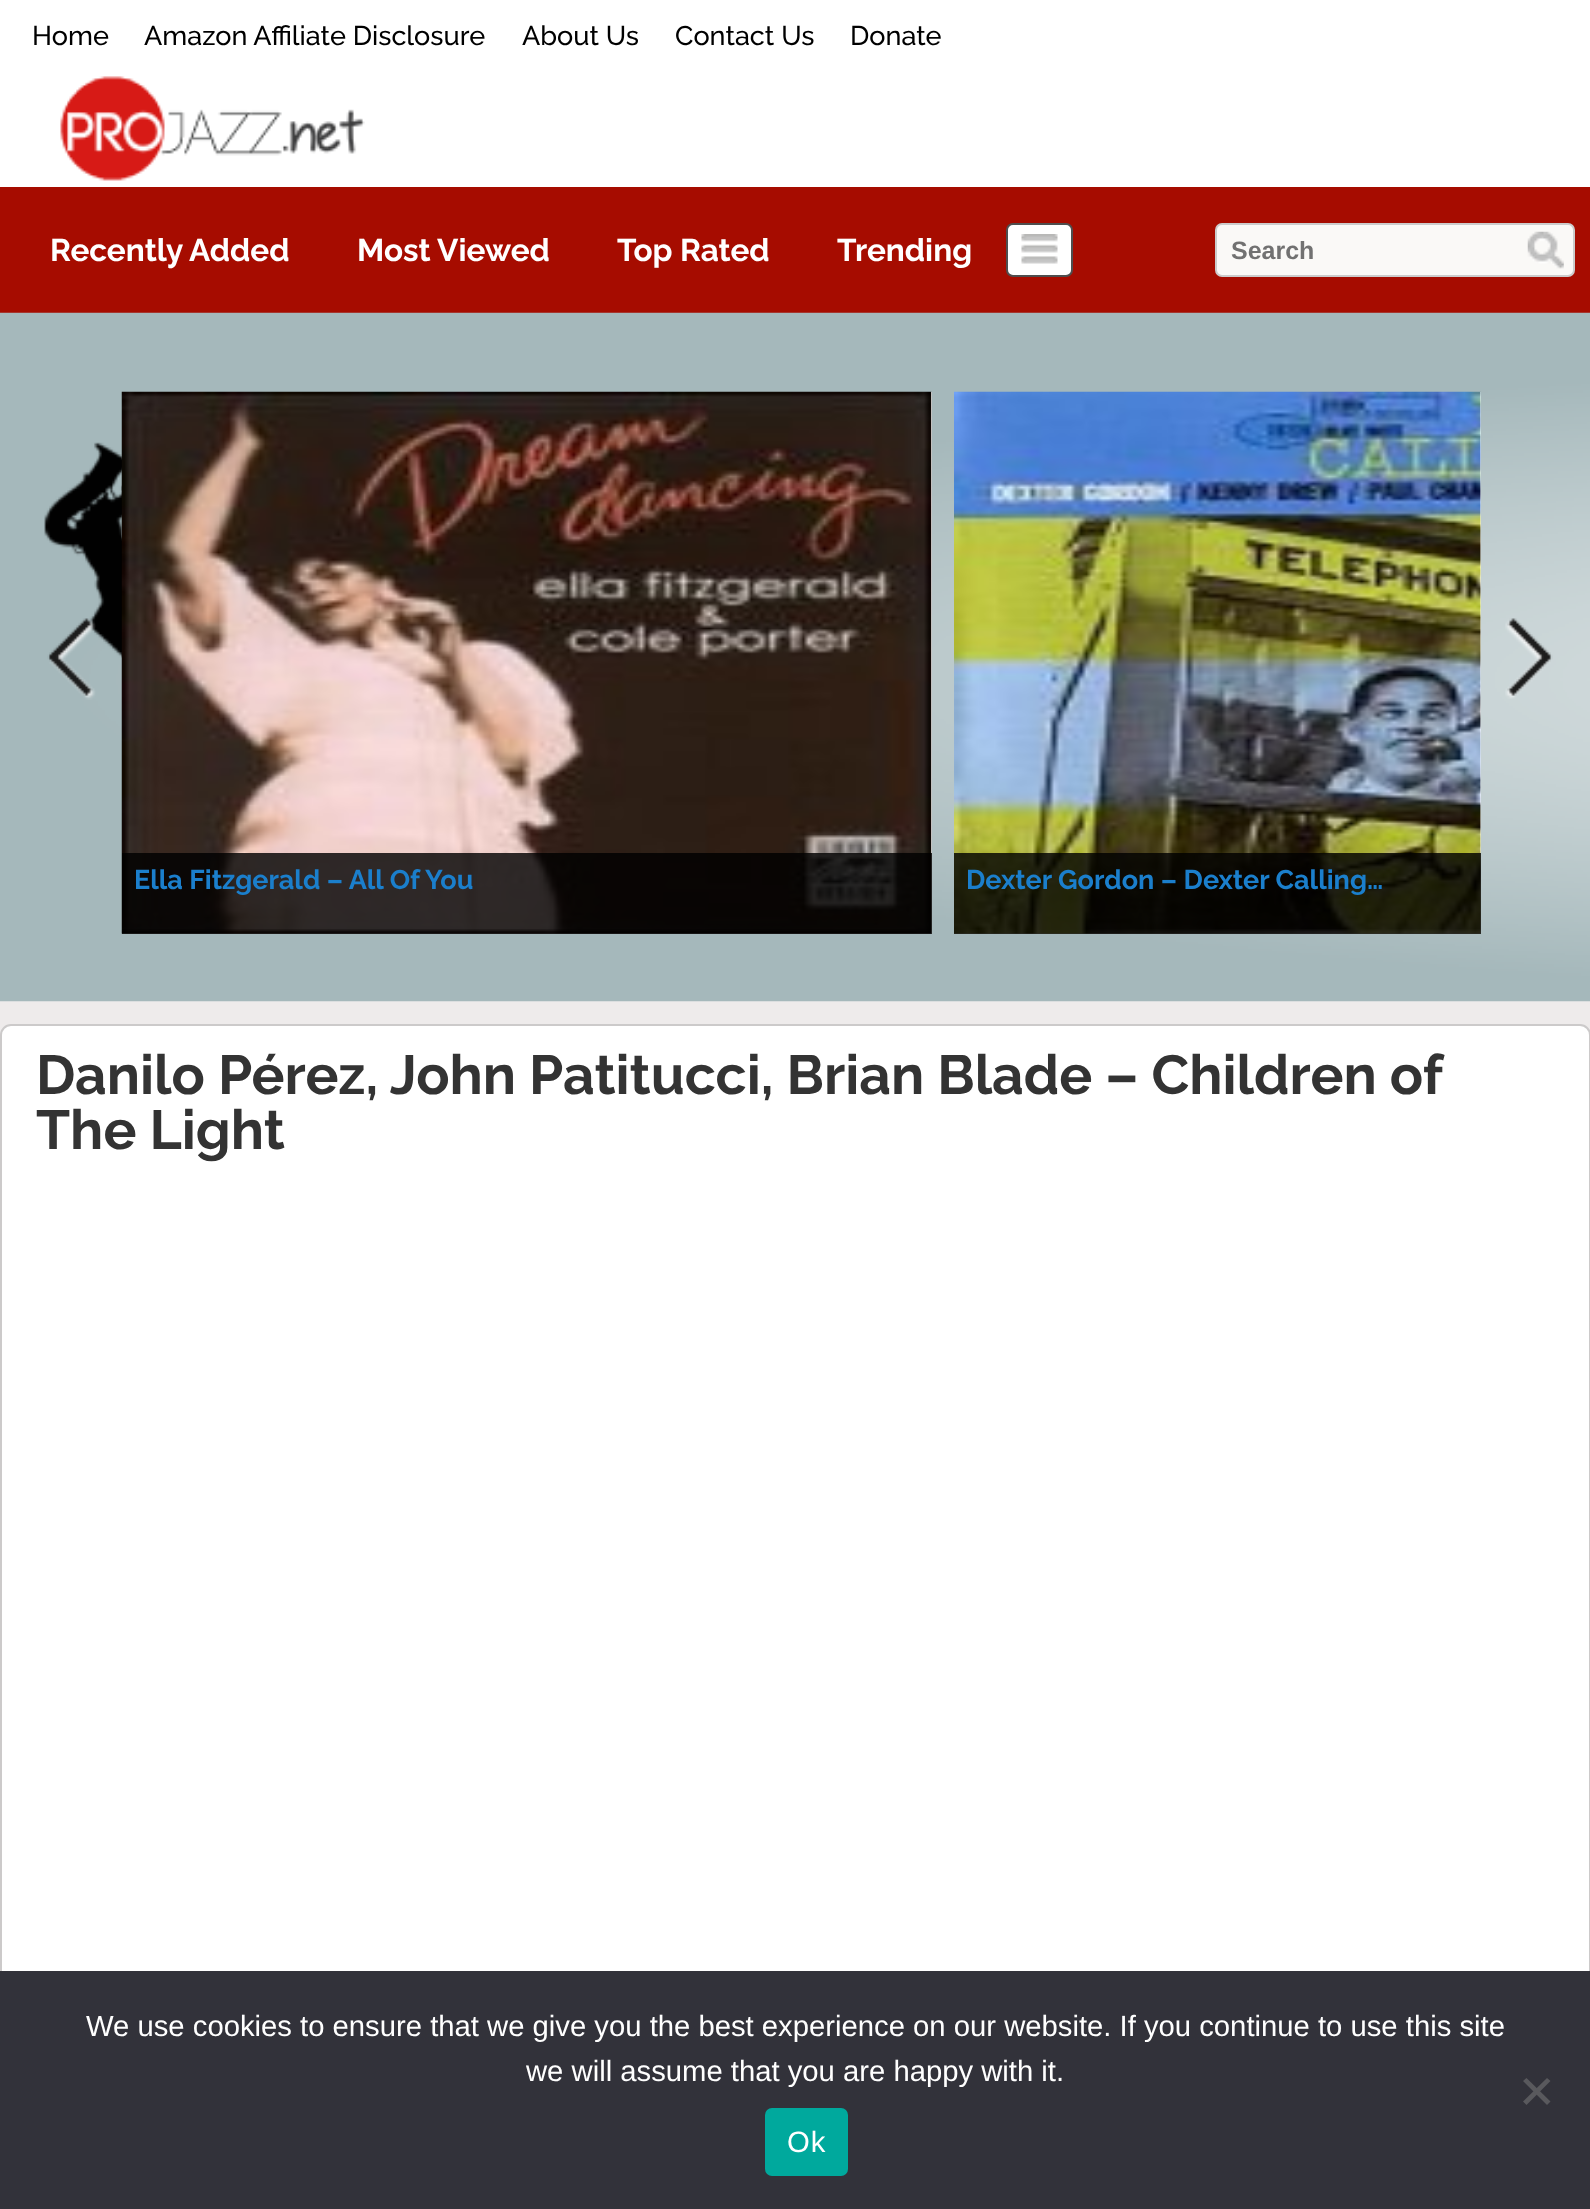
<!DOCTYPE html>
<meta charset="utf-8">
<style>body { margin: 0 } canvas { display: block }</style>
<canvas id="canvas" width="1590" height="2209"></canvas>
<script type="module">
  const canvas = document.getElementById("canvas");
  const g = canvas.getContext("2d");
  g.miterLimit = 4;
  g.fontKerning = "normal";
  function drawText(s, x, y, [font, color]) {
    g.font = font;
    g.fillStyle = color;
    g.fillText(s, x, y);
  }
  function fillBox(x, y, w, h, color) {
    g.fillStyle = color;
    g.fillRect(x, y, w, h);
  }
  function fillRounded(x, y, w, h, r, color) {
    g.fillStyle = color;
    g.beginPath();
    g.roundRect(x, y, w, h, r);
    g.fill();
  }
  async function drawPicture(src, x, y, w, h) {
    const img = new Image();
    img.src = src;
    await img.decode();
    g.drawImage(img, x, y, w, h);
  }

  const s1 = ["500 27px Raleway", "#000000"];
  const s2 = ["bold 31.5px Raleway", "#FFFFFF"];
  const s3 = ["bold 25px Liberation Sans", "#717171"];
  const s4 = ["bold 27px Raleway", "#1B7FCC"];
  const s5 = ["bold 55.1px Raleway", "#333333"];
  const s6 = ["29.25px Liberation Sans", "#FFFFFF"];

  fillBox(0, 0, 1590, 2209, "#EEEBEB");
  fillBox(0, 0, 1590, 187, "#FFFFFF");
  drawText("Home", 32, 45, s1);
  drawText("Amazon Affiliate Disclosure", 144, 45, s1);
  drawText("About Us", 522, 45, s1);
  drawText("Contact Us", 675, 45, s1);
  drawText("Donate", 850, 45, s1);
  await drawPicture("pic1.png", 60, 76, 305, 105);
  fillBox(0, 187, 1590, 126, "#A60C00");
  drawText("Recently Added", 50, 261, s2);
  drawText("Most Viewed", 357, 261, s2);
  drawText("Top Rated", 617, 261, s2);
  drawText("Trending", 837, 261, s2);
  g.beginPath();
  g.roundRect(1007, 224, 65, 52, 6);
  g.fill();
  g.strokeStyle = "#4E4E4E";
  g.lineWidth = 2;
  g.stroke();
  await drawPicture("pic2.png", 1021, 234, 37, 30);
  g.fillStyle = "#FAF9F7";
  g.beginPath();
  g.roundRect(1216, 224, 358, 52, 6);
  g.fill();
  g.strokeStyle = "#CCCCCC";
  g.stroke();
  drawText("Search", 1231, 259, s3);
  await drawPicture("pic3.png", 1527, 231, 37, 38);
  await drawPicture("pic4.png", 0, 312, 1590, 690);
  await drawPicture("pic5.png", 47, 618, 49, 82);
  await drawPicture("pic6.png", 1505, 618, 48, 81);
  fillBox(122, 392, 810, 542, "#FFFFFF");
  await drawPicture("pic7.png", 121, 391, 811, 543);
  fillBox(122, 853, 810, 81, "rgba(0, 0, 0, 0.81)");
  drawText("Ella Fitzgerald – All Of You", 134, 889, s4);
  fillBox(954, 392, 527, 542, "#FFFFFF");
  await drawPicture("pic8.png", 954, 391, 527, 543);
  fillBox(954, 853, 527, 81, "rgba(0, 0, 0, 0.81)");
  drawText("Dexter Gordon – Dexter Calling…", 966, 889, s4);
  g.fillStyle = "#FFFFFF";
  g.beginPath();
  g.roundRect(1, 1025, 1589, 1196, 10);
  g.fill();
  g.strokeStyle = "#CCCACA";
  g.stroke();
  g.wordSpacing = "-0.25px";
  drawText("Danilo Pérez, John Patitucci, Brian Blade – Children of", 36, 1094, s5);
  g.wordSpacing = "0px";
  drawText("The Light", 36, 1149, s5);
  fillBox(0, 1971, 1590, 238, "#32323A");
  drawText("We use cookies to ensure that we give you the best experience on our website. If you continue to use this site", 86, 2036, s6);
  drawText("we will assume that you are happy with it.", 526, 2081, s6);
  g.fillStyle = "#59595D";
  g.beginPath();
  g.moveTo(1547, 2078);
  g.lineTo(1550.5, 2081);
  g.lineTo(1526.5, 2105);
  g.lineTo(1523, 2101.5);
  g.closePath();
  g.fill();
  g.beginPath();
  g.moveTo(1523, 2081);
  g.lineTo(1526.5, 2078);
  g.lineTo(1550.5, 2101.5);
  g.lineTo(1547, 2105);
  g.closePath();
  g.fill();
  fillRounded(765, 2108, 83, 68, 7, "#00A99D");
  g.letterSpacing = "1px";
  drawText("Ok", 787, 2152, s6);
</script>
